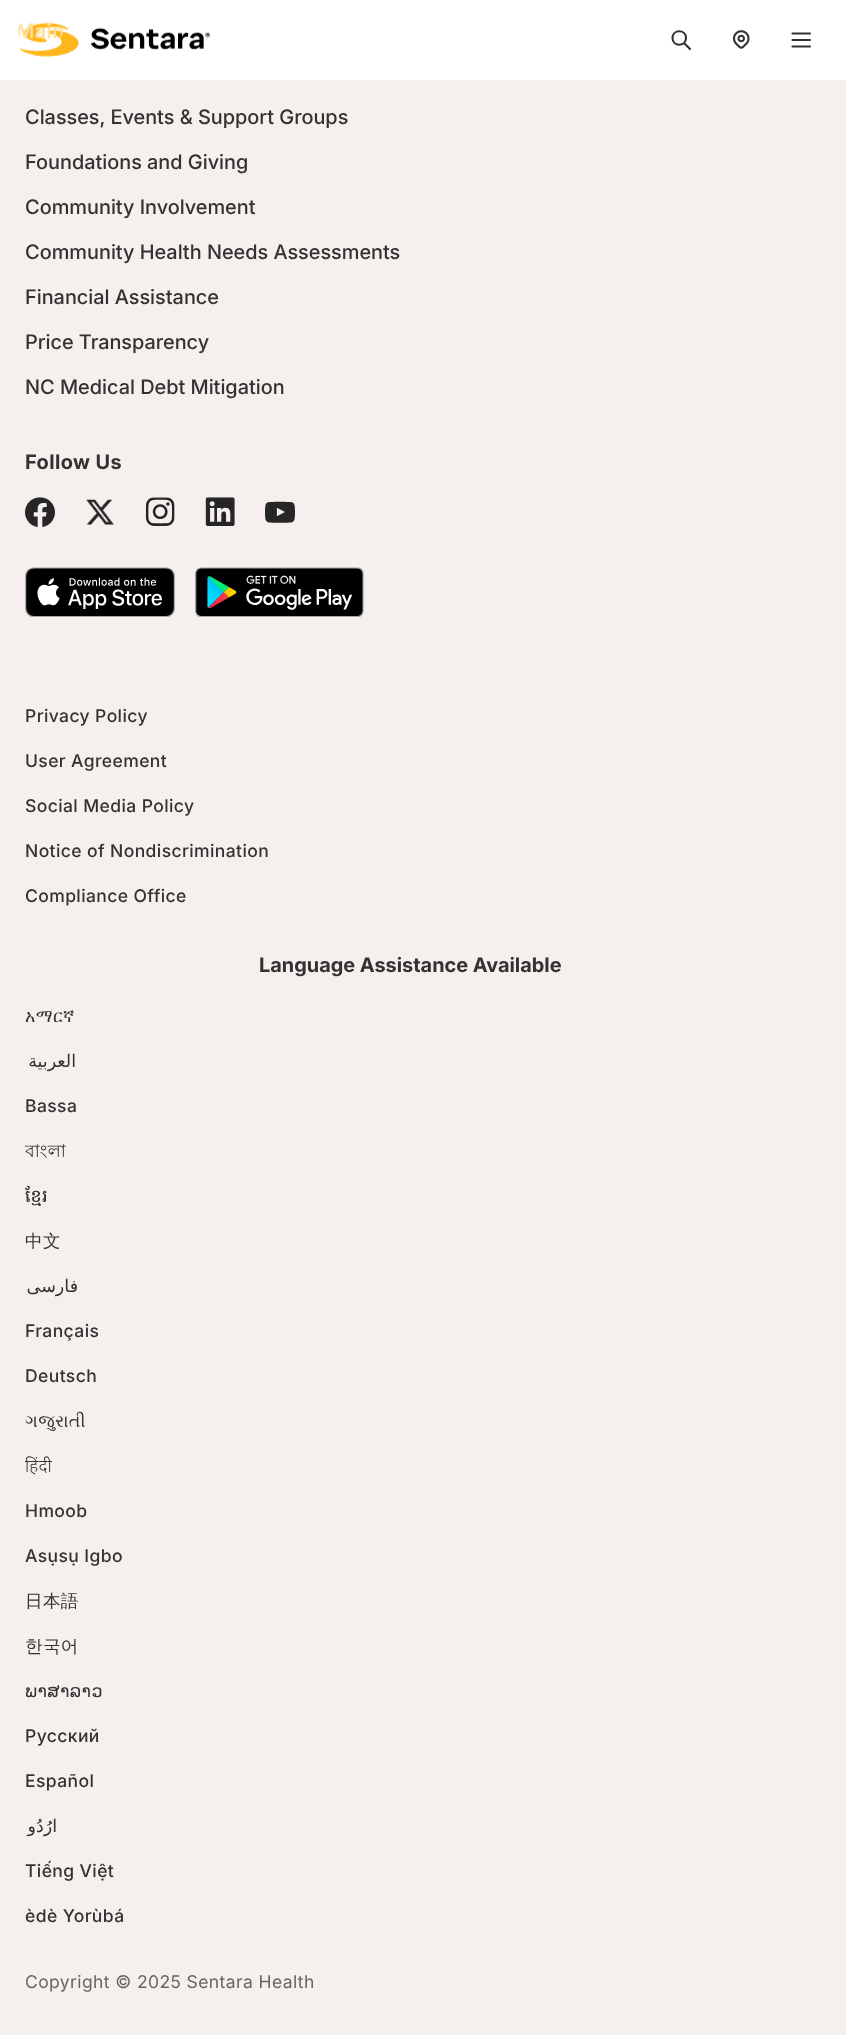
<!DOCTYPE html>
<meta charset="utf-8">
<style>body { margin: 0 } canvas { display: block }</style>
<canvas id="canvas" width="846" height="2035"></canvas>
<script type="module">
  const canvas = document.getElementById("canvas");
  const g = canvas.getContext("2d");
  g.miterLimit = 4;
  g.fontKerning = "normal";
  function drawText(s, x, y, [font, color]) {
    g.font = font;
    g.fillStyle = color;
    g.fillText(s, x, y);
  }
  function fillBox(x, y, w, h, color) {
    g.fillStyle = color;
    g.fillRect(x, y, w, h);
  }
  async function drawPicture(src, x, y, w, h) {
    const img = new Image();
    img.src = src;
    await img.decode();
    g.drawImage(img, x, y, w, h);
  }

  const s1 = ["600 20px Inter", "#FFE19F"];
  const s2 = ["500 20px Inter", "#333131"];
  const s3 = ["bold 20px Inter", "#333131"];
  const s4 = ["500 17.5px 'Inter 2'", "#333131"];
  const s5 = ["17.5px FreeSerif", "#333131"];
  const s6 = ["17.5px DejaVu Sans", "#333131"];
  const s7 = ["17.5px Lohit Bengali", "#333131"];
  const s8 = ["500 17.5px Hanuman", "#333131"];
  const s9 = ["500 17.5px WenQuanYi Zen Hei", "#333131"];
  const s10 = ["300 17.5px Noto Sans", "#333131"];
  const s11 = ["17.5px Inter", "#696363"];

  fillBox(0, 0, 846, 2035, "#F5F0EE");
  fillBox(0, 0, 846, 80, "#FFFFFF");
  await drawPicture("pic1.png", 20, 22, 190, 35);
  g.beginPath();
  g.moveTo(690, 49);
  g.lineTo(684, 43);
  g.moveTo(686, 38);
  g.bezierCurveTo(686, 47, 672.5, 47, 672.5, 38);
  g.bezierCurveTo(672.5, 29, 686, 29, 686, 38);
  g.closePath();
  g.strokeStyle = "#333131";
  g.lineWidth = 2.1;
  g.lineCap = "round";
  g.lineJoin = "round";
  g.stroke();
  await drawPicture("pic2.png", 732, 30, 18, 19);
  g.beginPath();
  g.moveTo(792.5, 33.5);
  g.lineTo(810, 33.5);
  g.moveTo(792.5, 40);
  g.lineTo(810, 40);
  g.moveTo(792.5, 46.5);
  g.lineTo(810, 46.5);
  g.stroke();
  g.save();
  g.beginPath();
  g.roundRect(18, 18, 45, 25, 12.5);
  g.clip();
  g.letterSpacing = "0.4px";
  drawText("Main", 16, 38, s1);
  g.restore();
  drawText("Classes, Events & Support Groups", 25, 124, s2);
  drawText("Foundations and Giving", 25, 169, s2);
  drawText("Community Involvement", 25, 214, s2);
  drawText("Community Health Needs Assessments", 25, 259, s2);
  drawText("Financial Assistance", 25, 304, s2);
  drawText("Price Transparency", 25, 349, s2);
  drawText("NC Medical Debt Mitigation", 25, 394, s2);
  g.letterSpacing = "0.4px";
  drawText("Follow Us", 25, 469, s3);
  await drawPicture("pic3.png", 25, 497, 30, 30);
  await drawPicture("pic4.png", 86, 499, 28, 26);
  await drawPicture("pic5.png", 145, 497, 30, 29);
  await drawPicture("pic6.png", 205, 497, 30, 29);
  await drawPicture("pic7.png", 265, 501, 30, 22);
  await drawPicture("pic8.png", 25, 567, 150, 50);
  await drawPicture("pic9.png", 195, 567, 169, 50);
  drawText("Privacy Policy", 25, 722, s4);
  drawText("User Agreement", 25, 767, s4);
  drawText("Social Media Policy", 25, 812, s4);
  drawText("Notice of Nondiscrimination", 25, 857, s4);
  drawText("Compliance Office", 25, 902, s4);
  g.letterSpacing = "0px";
  drawText("Language Assistance Available", 259, 972, s3);
  g.letterSpacing = "0.4px";
  drawText("አማርኛ", 25, 1022, s5);
  g.direction = "rtl";
  drawText("العربية", 76, 1067, s6);
  g.direction = "ltr";
  drawText("Bassa", 25, 1112, s4);
  drawText("বাংলা", 25, 1157, s7);
  drawText("ខ្មែរ", 25, 1202, s8);
  drawText("中文", 25, 1247, s9);
  g.direction = "rtl";
  drawText("فارسی", 78, 1292, s6);
  g.direction = "ltr";
  drawText("Français", 25, 1337, s4);
  drawText("Deutsch", 25, 1382, s4);
  drawText("ગજુરાતી", 25, 1427, s5);
  drawText("हिंदी", 25, 1472, s10);
  drawText("Hmoob", 25, 1517, s4);
  drawText("Asụsụ Igbo", 25, 1562, s4);
  drawText("日本語", 25, 1607, s9);
  drawText("한국어", 25, 1652, s9);
  drawText("ພາສາລາວ", 25, 1697, s6);
  drawText("Русский", 25, 1742, s4);
  drawText("Español", 25, 1787, s4);
  g.direction = "rtl";
  drawText("ارُدُو", 57, 1832, s6);
  g.direction = "ltr";
  drawText("Tiếng Việt", 25, 1877, s4);
  drawText("èdè Yorùbá", 25, 1922, s4);
  drawText("Copyright © 2025 Sentara Health", 25, 1988, s11);
</script>
